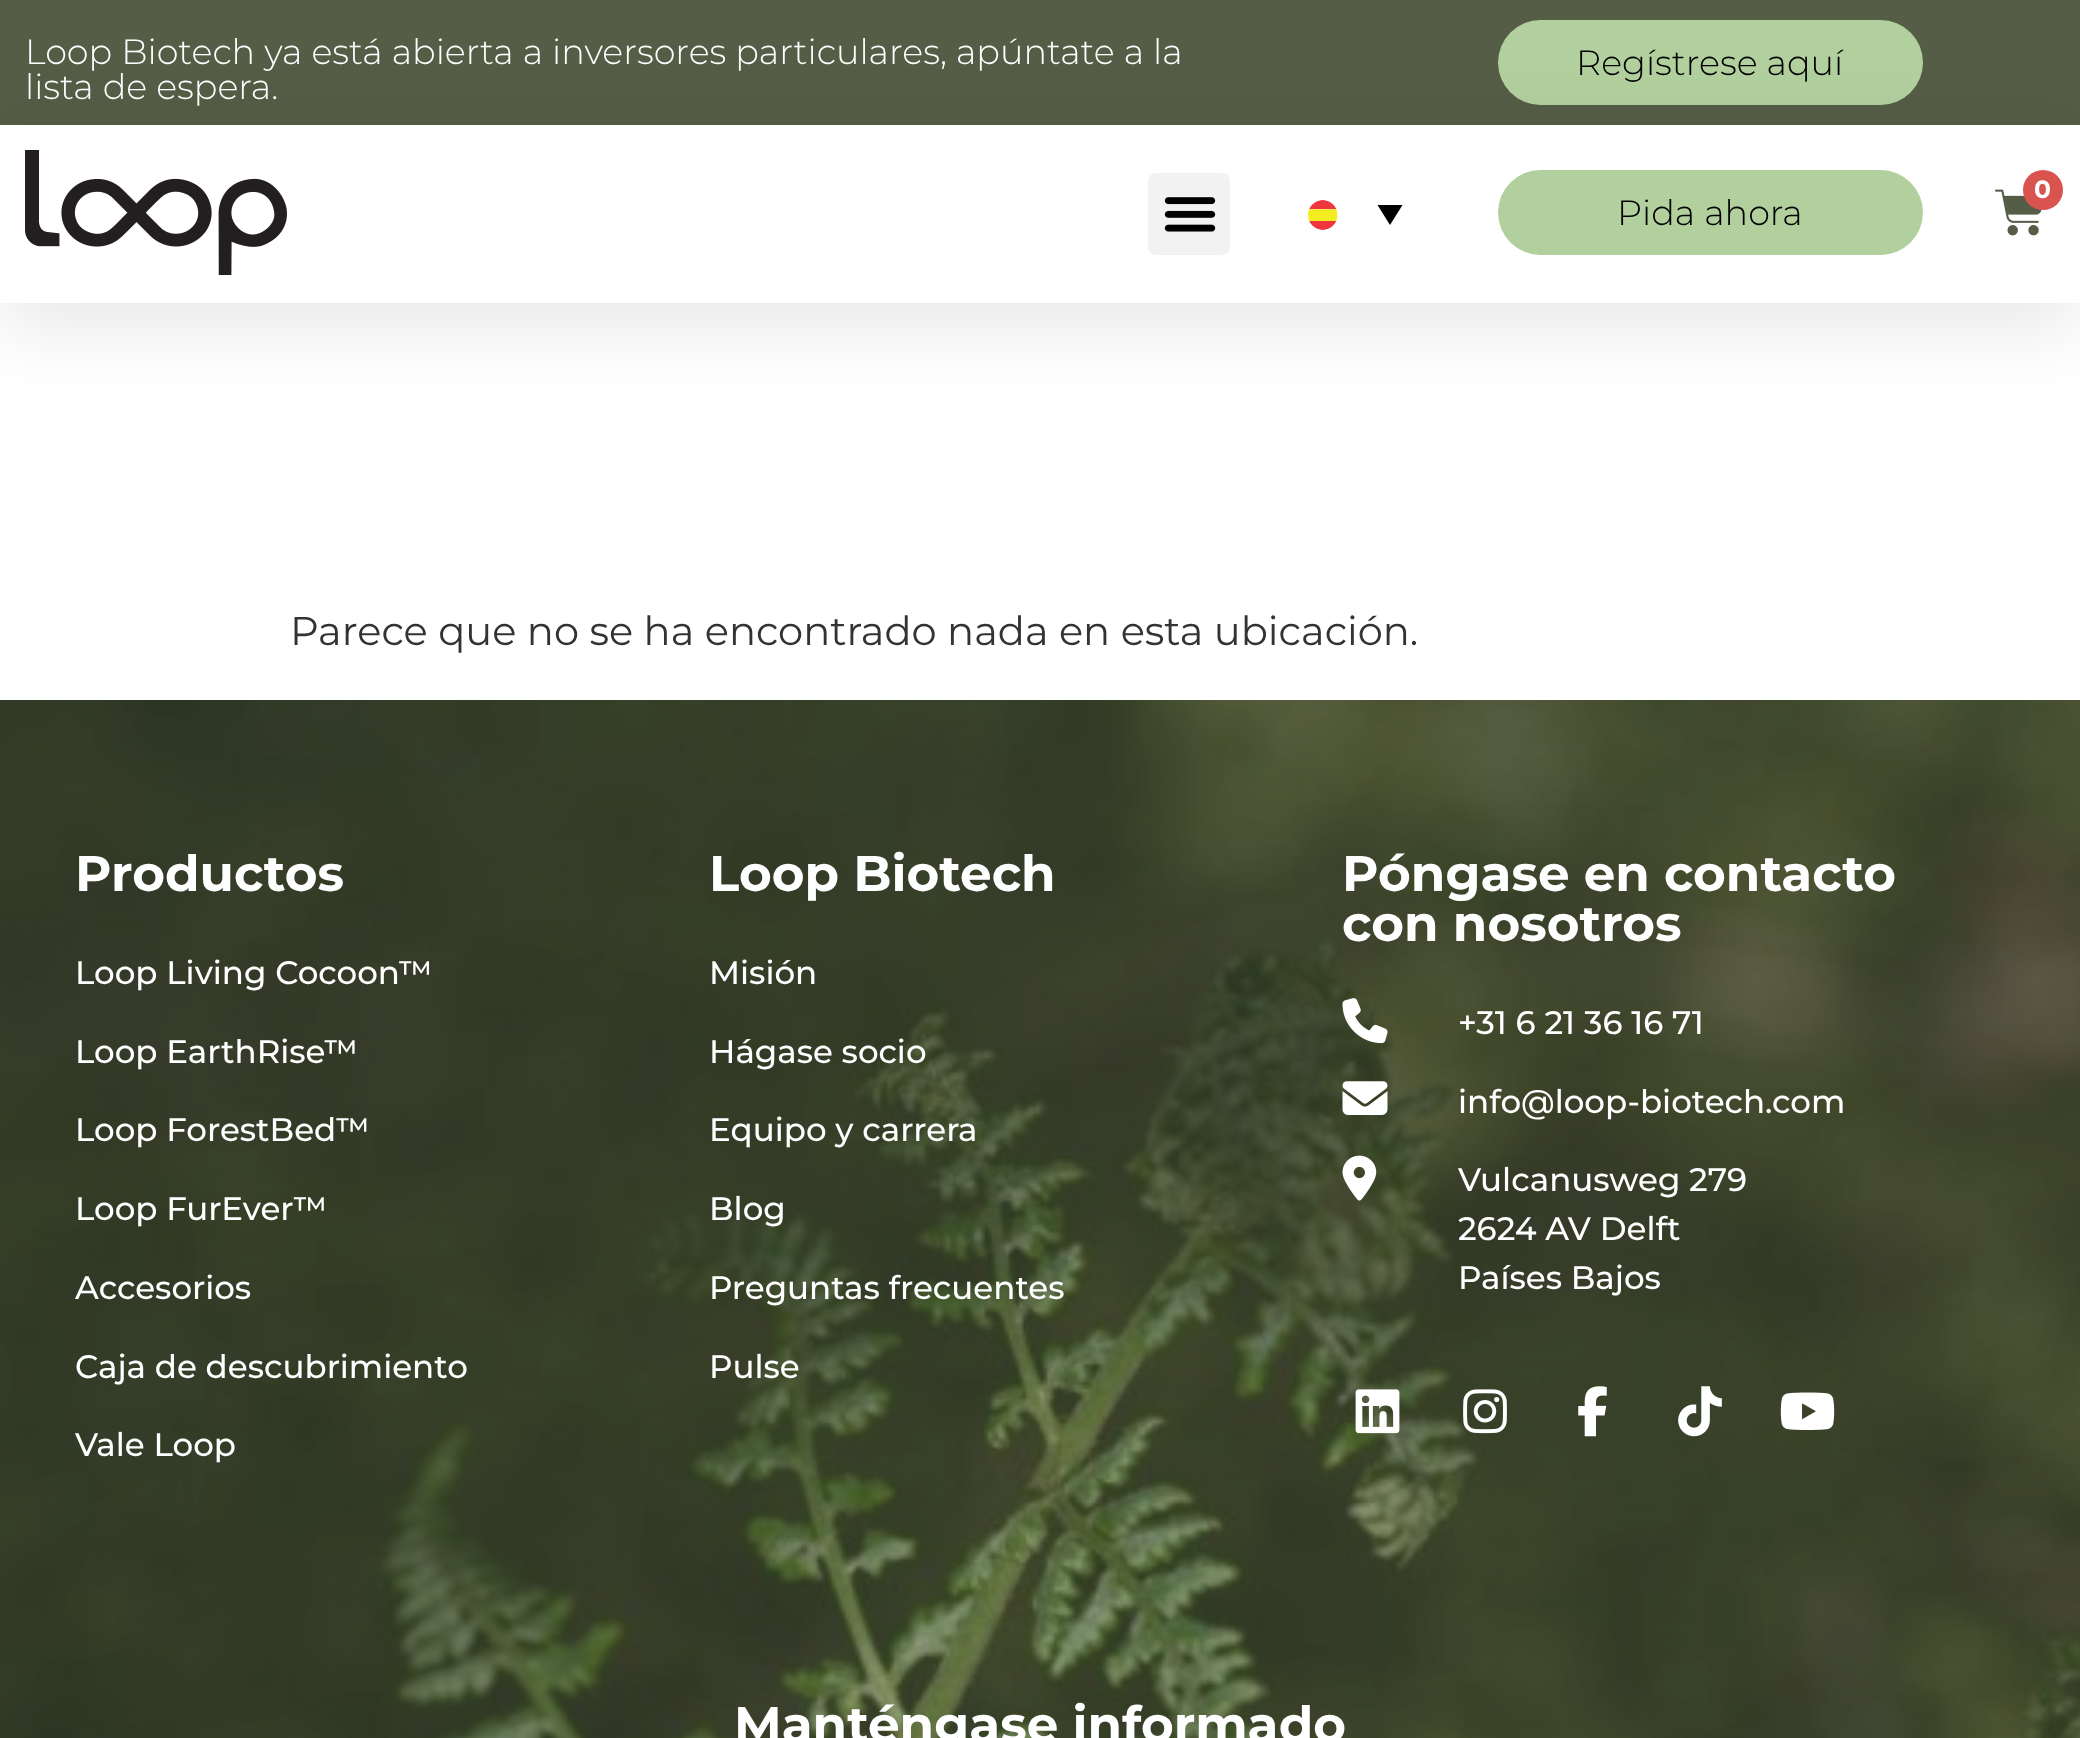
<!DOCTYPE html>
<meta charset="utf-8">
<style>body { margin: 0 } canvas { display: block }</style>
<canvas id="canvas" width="2080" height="1738"></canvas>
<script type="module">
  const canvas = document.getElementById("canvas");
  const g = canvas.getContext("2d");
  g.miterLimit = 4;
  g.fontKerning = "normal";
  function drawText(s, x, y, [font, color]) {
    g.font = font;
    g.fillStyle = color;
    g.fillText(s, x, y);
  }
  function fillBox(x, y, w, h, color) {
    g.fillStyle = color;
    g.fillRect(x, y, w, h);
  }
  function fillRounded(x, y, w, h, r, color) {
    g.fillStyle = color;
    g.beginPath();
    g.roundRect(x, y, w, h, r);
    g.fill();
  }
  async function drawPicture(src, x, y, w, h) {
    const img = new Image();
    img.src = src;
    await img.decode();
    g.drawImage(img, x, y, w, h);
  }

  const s1 = ["300 35px Montserrat", "#FFFFFF"];
  const s2 = ["300 35px Montserrat", "#000000"];
  const s3 = ["bold 25px Montserrat", "#FFFFFF"];
  const s4 = ["40px Montserrat", "#333333"];
  const s5 = ["bold 50px Montserrat", "#FFFFFF"];
  const s6 = ["500 32.5px Montserrat", "#FFFFFF"];

  fillBox(0, 0, 2080, 1738, "#FFFFFF");
  fillBox(0, 0, 2080, 125, "#565D46");
  drawText("Loop Biotech ya está abierta a inversores particulares, apúntate a la", 25, 64, s1);
  drawText("lista de espera.", 25, 99, s1);
  fillRounded(1498, 20, 425, 85, 42.5, "#B2CF9E");
  drawText("Regístrese aquí", 1576, 75, s2);
  g.fillStyle = "rgba(0, 0, 0, 0.1)";
  g.filter = "blur(40px)";
  g.beginPath();
  g.rect(0, 145, 2080, 178);
  g.fill();
  g.filter = "none";
  fillBox(0, 125, 2080, 178, "#FFFFFF");
  await drawPicture("pic1.png", 25, 150, 262, 125);
  fillRounded(1148, 173, 82, 82, 8, "#F2F2F2");
  await drawPicture("pic2.png", 1164, 197, 52, 35);
  await drawPicture("pic3.png", 1308, 200, 30, 30);
  g.fillStyle = "#000000";
  g.beginPath();
  g.moveTo(1377.5, 205);
  g.lineTo(1402.5, 205);
  g.lineTo(1390, 225);
  g.closePath();
  g.fill();
  await drawPicture("pic4.png", 1995, 189, 47, 47);
  g.fillStyle = "#D9534F";
  g.beginPath();
  g.arc(2043, 190, 20, 0, Math.PI * 2);
  g.fill();
  drawText("0", 2034, 198, s3);
  fillRounded(1498, 170, 425, 85, 42.5, "#B2CF9E");
  drawText("Pida ahora", 1617, 225, s2);
  drawText("Parece que no se ha encontrado nada en esta ubicación.", 290, 645, s4);
  await drawPicture("pic5.png", 0, 700, 2080, 1038);
  drawText("Productos", 75, 891, s5);
  drawText("Loop Living Cocoon™", 75, 984, s6);
  drawText("Loop EarthRise™", 75, 1063, s6);
  drawText("Loop ForestBed™", 75, 1141, s6);
  drawText("Loop FurEver™", 75, 1220, s6);
  drawText("Accesorios", 75, 1299, s6);
  drawText("Caja de descubrimiento", 75, 1378, s6);
  drawText("Vale Loop", 75, 1456, s6);
  drawText("Loop Biotech", 709, 891, s5);
  drawText("Misión", 709, 984, s6);
  drawText("Hágase socio", 709, 1063, s6);
  drawText("Equipo y carrera", 709, 1141, s6);
  drawText("Blog", 709, 1220, s6);
  drawText("Preguntas frecuentes", 709, 1299, s6);
  drawText("Pulse", 709, 1378, s6);
  drawText("Póngase en contacto", 1342, 891, s5);
  drawText("con nosotros", 1342, 941, s5);
  await drawPicture("pic6.png", 1342, 998, 46, 46);
  drawText("+31 6 21 36 16 71", 1458, 1034, s6);
  await drawPicture("pic7.png", 1342, 1081, 46, 34);
  drawText("info@loop-biotech.com", 1458, 1113, s6);
  await drawPicture("pic8.png", 1342, 1155, 35, 46);
  drawText("Vulcanusweg 279", 1458, 1191, s6);
  drawText("2624 AV Delft", 1458, 1240, s6);
  drawText("Países Bajos", 1458, 1289, s6);
  await drawPicture("pic9.png", 1355, 1389, 45, 45);
  await drawPicture("pic10.png", 1463, 1389, 44, 45);
  await drawPicture("pic11.png", 1578, 1386, 29, 51);
  await drawPicture("pic12.png", 1678, 1386, 44, 51);
  await drawPicture("pic13.png", 1780, 1392, 55, 38);
  drawText("Manténgase informado", 734, 1742, s5);
</script>
